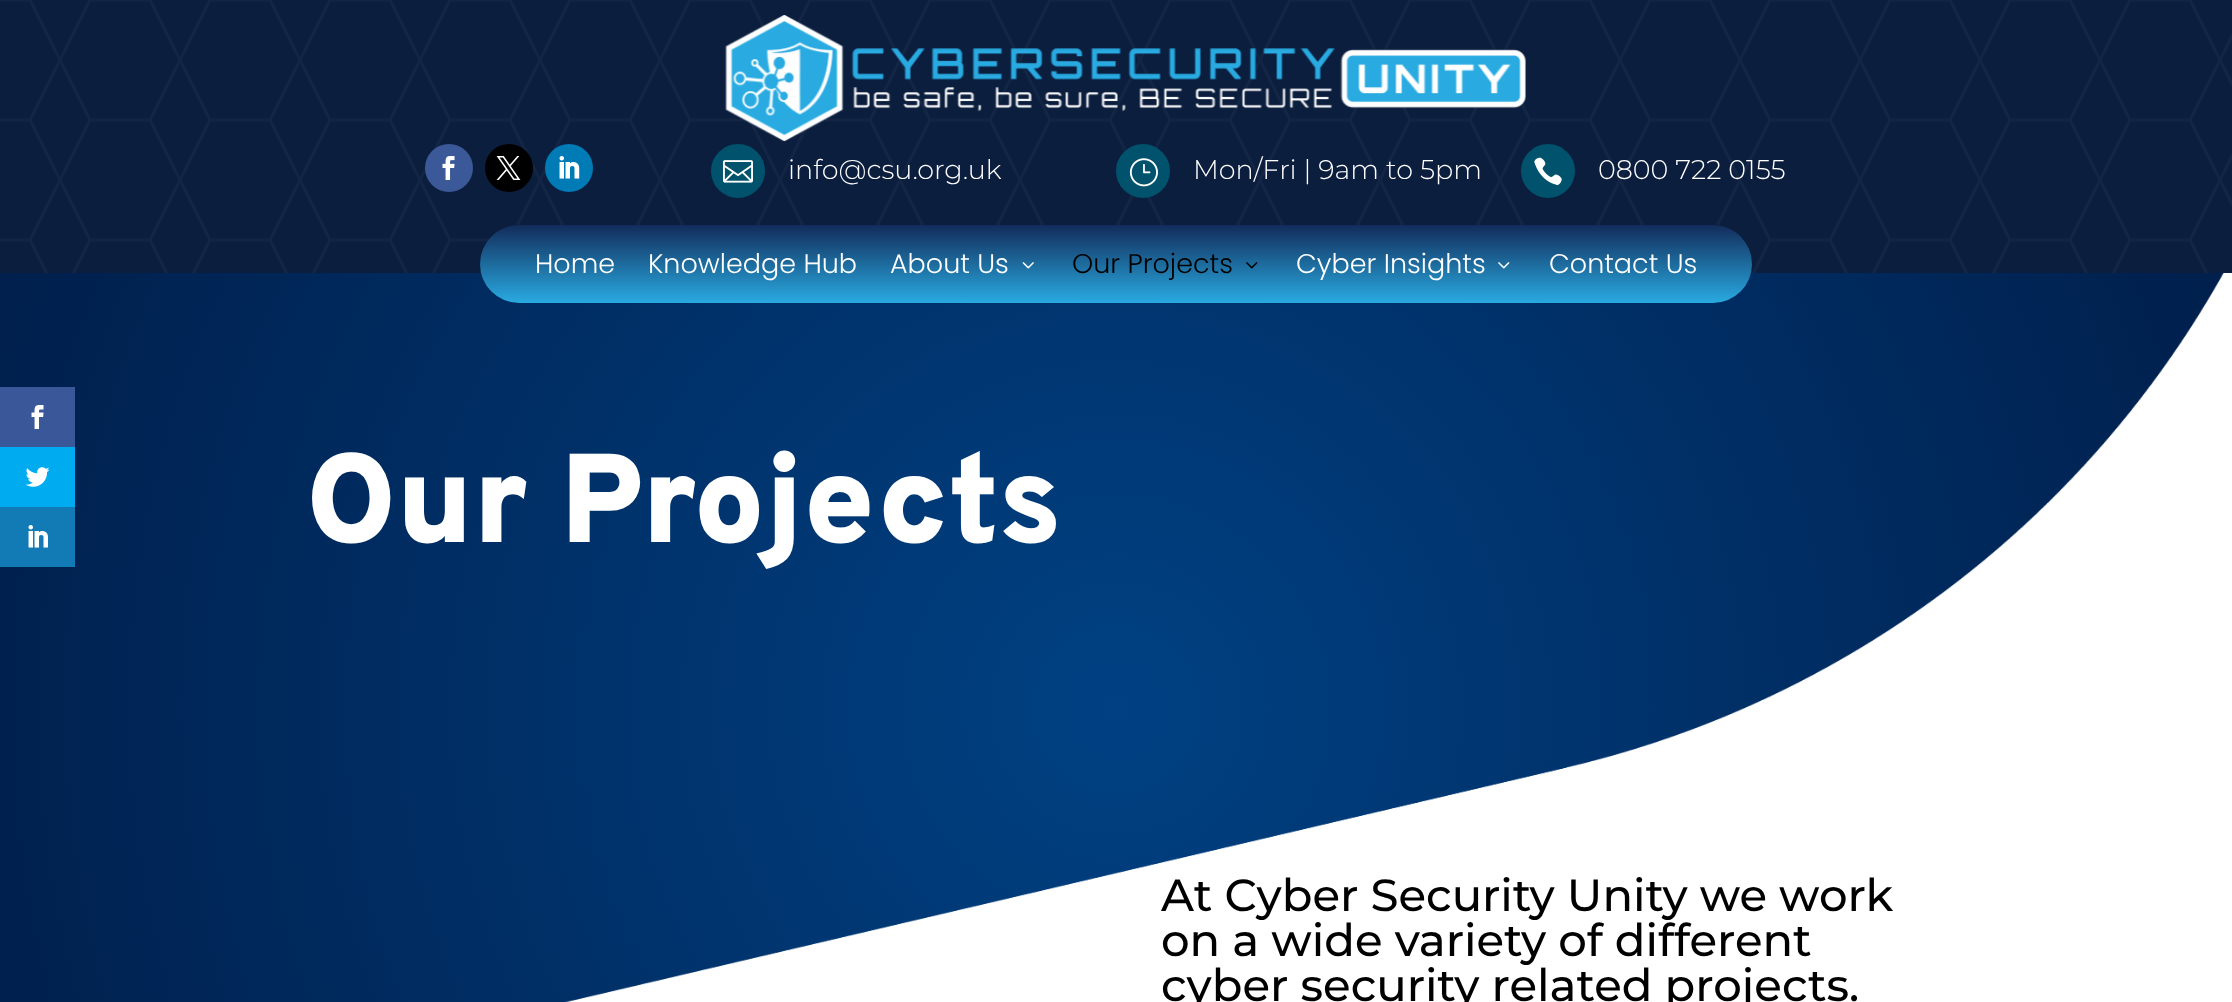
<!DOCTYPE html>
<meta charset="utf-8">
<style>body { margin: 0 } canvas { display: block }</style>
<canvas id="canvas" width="2232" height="1002"></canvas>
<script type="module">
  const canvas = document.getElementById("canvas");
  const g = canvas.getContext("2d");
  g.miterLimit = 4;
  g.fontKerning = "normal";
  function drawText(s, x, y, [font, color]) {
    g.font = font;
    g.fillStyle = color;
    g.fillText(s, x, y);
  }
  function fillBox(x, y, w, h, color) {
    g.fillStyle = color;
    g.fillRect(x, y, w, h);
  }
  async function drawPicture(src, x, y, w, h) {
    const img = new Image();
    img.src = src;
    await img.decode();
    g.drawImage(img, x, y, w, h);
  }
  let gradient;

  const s1 = ["100 27px 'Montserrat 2'", "#FFFFFF"];
  const s2 = ["300 27px Poppins", "#FFFFFF"];
  const s3 = ["300 27px Poppins", "#000000"];
  const s4 = ["900 126px Overpass", "#FFFFFF"];
  const s5 = ["100 45px Montserrat", "#000000"];

  fillBox(0, 0, 2232, 1002, "#FFFFFF");
  await drawPicture("pic15.png", 0, 273, 2224, 729);
  fillBox(0, 387, 75, 60, "#3A579A");
  await drawPicture("pic1.png", 31, 405, 13, 24);
  fillBox(0, 447, 75, 60, "#00ABF0");
  await drawPicture("pic2.png", 25, 467, 25, 20);
  fillBox(0, 507, 75, 60, "#127BB6");
  await drawPicture("pic3.png", 28, 525, 20, 23);
  fillBox(0, 0, 2232, 273, "#0C1E3E");
  await drawPicture("pic4.png", 0, 0, 2232, 273);
  await drawPicture("pic5.png", 725, 15, 801, 127);
  g.fillStyle = "#3B5998";
  g.beginPath();
  g.arc(449, 168, 24, 0, Math.PI * 2);
  g.fill();
  await drawPicture("pic6.png", 442, 156, 13, 24);
  g.fillStyle = "#000000";
  g.beginPath();
  g.arc(509, 168, 24, 0, Math.PI * 2);
  g.fill();
  await drawPicture("pic7.png", 496, 156, 25, 24);
  g.fillStyle = "#007BB6";
  g.beginPath();
  g.arc(569, 168, 24, 0, Math.PI * 2);
  g.fill();
  await drawPicture("pic8.png", 559, 156, 21, 23);
  g.fillStyle = "#01526C";
  g.beginPath();
  g.arc(738, 171, 25.5, 0, Math.PI * 2);
  g.fill();
  g.strokeStyle = "#01526C";
  g.lineWidth = 3;
  g.stroke();
  await drawPicture("pic9.png", 723, 160, 30, 23);
  drawText("info@csu.org.uk", 788, 179, s1);
  g.fillStyle = "#01526C";
  g.beginPath();
  g.arc(1143, 171, 25.5, 0, Math.PI * 2);
  g.fill();
  g.stroke();
  await drawPicture("pic10.png", 1129, 158, 29, 29);
  drawText("Mon/Fri | 9am to 5pm", 1193, 179, s1);
  g.fillStyle = "#01526C";
  g.beginPath();
  g.arc(1548, 171, 25.5, 0, Math.PI * 2);
  g.fill();
  g.stroke();
  await drawPicture("pic11.png", 1534, 157, 28, 29);
  drawText("0800 722 0155", 1598, 179, s1);
  gradient = g.createLinearGradient(1116, 225, 1116, 303);
  gradient.addColorStop(0, "#122C5A");
  gradient.addColorStop(1, "#29AAE1");
  g.fillStyle = gradient;
  g.beginPath();
  g.roundRect(480, 225, 1272, 78, 39);
  g.fill();
  drawText("Home", 535, 273, s2);
  drawText("Knowledge Hub", 648, 273, s2);
  drawText("About Us", 890, 273, s2);
  await drawPicture("pic12.png", 1022, 262, 12, 7);
  drawText("Our Projects", 1072, 273, s3);
  await drawPicture("pic13.png", 1246, 262, 12, 7);
  drawText("Cyber Insights", 1296, 273, s2);
  await drawPicture("pic14.png", 1498, 262, 12, 7);
  drawText("Contact Us", 1549, 273, s2);
  drawText("Our Projects", 306, 542, s4);
  drawText("At Cyber Security Unity we work", 1161, 911, s5);
  drawText("on a wide variety of different", 1161, 956, s5);
  drawText("cyber security related projects.", 1161, 1001, s5);
</script>
